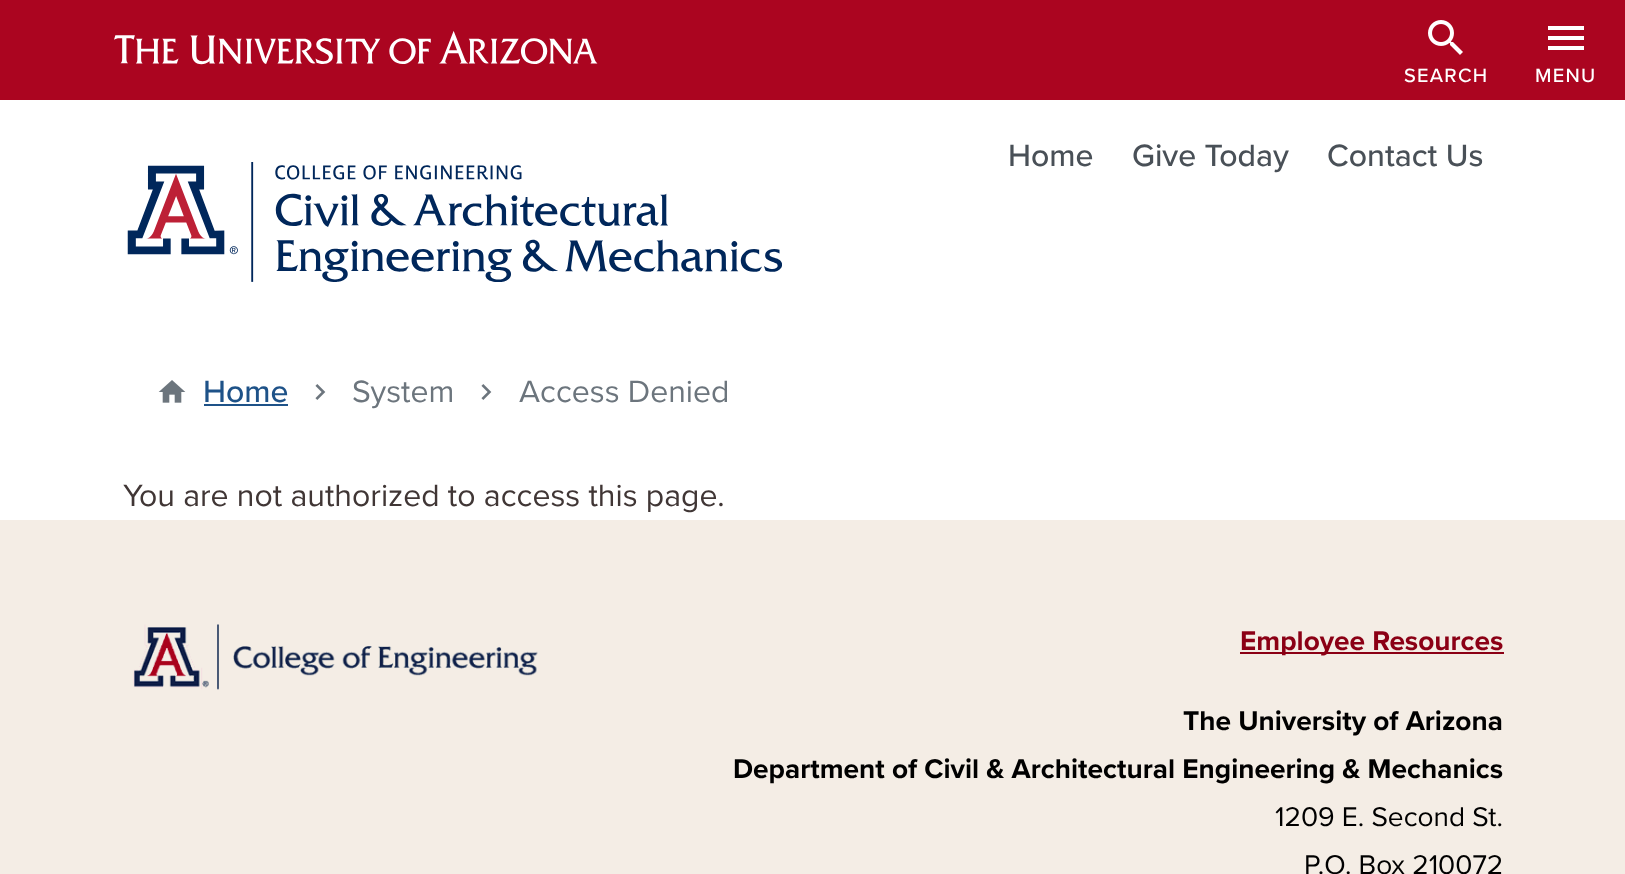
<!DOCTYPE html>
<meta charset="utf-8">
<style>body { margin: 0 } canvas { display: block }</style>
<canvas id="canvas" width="1625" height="874"></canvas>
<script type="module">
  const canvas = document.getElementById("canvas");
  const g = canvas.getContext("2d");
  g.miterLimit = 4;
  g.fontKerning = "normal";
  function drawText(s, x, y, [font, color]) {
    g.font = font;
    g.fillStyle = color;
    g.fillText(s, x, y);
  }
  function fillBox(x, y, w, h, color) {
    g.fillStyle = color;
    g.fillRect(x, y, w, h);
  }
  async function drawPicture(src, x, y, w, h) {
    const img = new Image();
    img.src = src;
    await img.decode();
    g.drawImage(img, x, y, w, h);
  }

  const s1 = ["500 20px Proxima Nova", "#FFFFFF"];
  const s2 = ["500 32px Proxima Nova", "#495057"];
  const s3 = ["500 32px Proxima Nova", "#1E5288"];
  const s4 = ["32px Proxima Nova", "#6C757D"];
  const s5 = ["32px Proxima Nova", "#403635"];
  const s6 = ["bold 28px Proxima Nova", "#8B0015"];
  const s7 = ["bold 28px Proxima Nova", "#000000"];
  const s8 = ["28px Proxima Nova", "#000000"];

  fillBox(0, 0, 1625, 874, "#FFFFFF");
  fillBox(0, 0, 1625, 100, "#AB0520");
  await drawPicture("pic1.png", 114, 31, 484, 34);
  await drawPicture("pic2.png", 1428, 20, 35, 35);
  g.letterSpacing = "1.25px";
  drawText("SEARCH", 1404, 82, s1);
  g.beginPath();
  g.moveTo(1548, 50);
  g.lineTo(1584, 50);
  g.lineTo(1584, 46);
  g.lineTo(1548, 46);
  g.closePath();
  g.moveTo(1548, 40);
  g.lineTo(1584, 40);
  g.lineTo(1584, 36);
  g.lineTo(1548, 36);
  g.closePath();
  g.moveTo(1548, 26);
  g.lineTo(1548, 30);
  g.lineTo(1584, 30);
  g.lineTo(1584, 26);
  g.closePath();
  g.fill();
  drawText("MENU", 1535, 82, s1);
  g.letterSpacing = "0px";
  drawText("Home", 1008, 166, s2);
  drawText("Give Today", 1132, 166, s2);
  drawText("Contact Us", 1327, 166, s2);
  await drawPicture("pic3.png", 127, 162, 655, 120);
  await drawPicture("pic4.png", 158, 380, 28, 23);
  drawText("Home", 203, 402, s3);
  fillBox(204, 404, 84, 2, "#1E5288");
  await drawPicture("pic5.png", 315, 384, 11, 16);
  drawText("System", 352, 402, s4);
  await drawPicture("pic5.png", 481, 384, 11, 16);
  drawText("Access Denied", 519, 402, s4);
  drawText("You are not authorized to access this page.", 123, 506, s5);
  fillBox(0, 520, 1625, 354, "#F4EDE5");
  await drawPicture("pic6.png", 133, 624, 405, 66);
  fillBox(1240, 652, 264, 2, "#8B0015");
  drawText("Employee Resources", 1240, 650, s6);
  drawText("The University of Arizona", 1183, 730, s7);
  drawText("Department of Civil & Architectural Engineering & Mechanics", 733, 778, s7);
  drawText("1209 E. Second St.", 1275, 826, s8);
  drawText("P.O. Box 210072", 1304, 874, s8);
</script>
